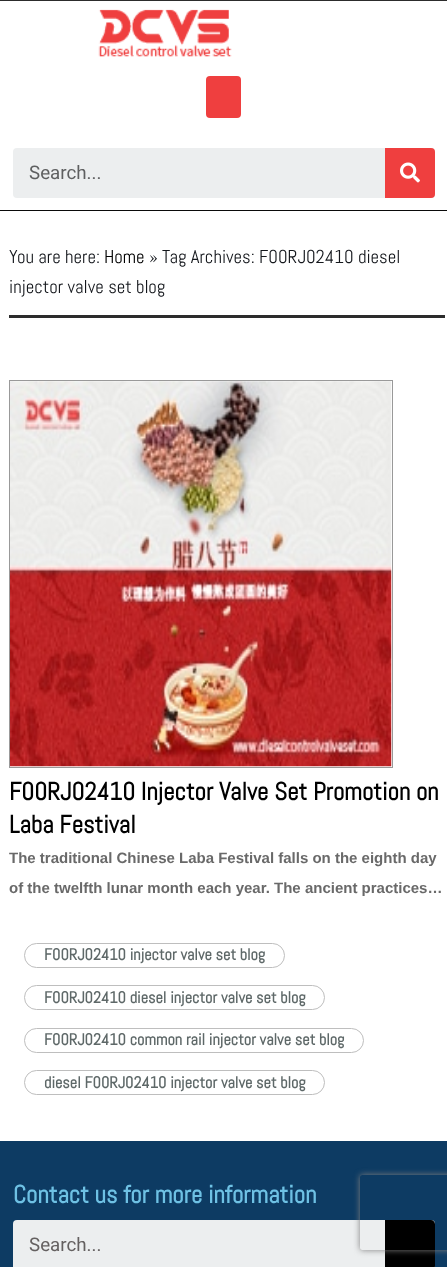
<!DOCTYPE html>
<meta charset="utf-8">
<style>body { margin: 0 } canvas { display: block }</style>
<canvas id="canvas" width="447" height="1267"></canvas>
<script type="module">
  const canvas = document.getElementById("canvas");
  const g = canvas.getContext("2d");
  g.miterLimit = 4;
  g.fontKerning = "normal";
  function drawText(s, x, y, [font, color]) {
    g.font = font;
    g.fillStyle = color;
    g.fillText(s, x, y);
  }
  function fillBox(x, y, w, h, color) {
    g.fillStyle = color;
    g.fillRect(x, y, w, h);
  }
  function fillRounded(x, y, w, h, r, color) {
    g.fillStyle = color;
    g.beginPath();
    g.roundRect(x, y, w, h, r);
    g.fill();
  }
  async function drawPicture(src, x, y, w, h) {
    const img = new Image();
    img.src = src;
    await img.decode();
    g.drawImage(img, x, y, w, h);
  }

  const s1 = ["18.75px Roboto", "#5E5F60"];
  const s2 = ["18.75px Abel", "#14171C"];
  const s3 = ["18.75px Abel", "#000000"];
  const s4 = ["bold 25px Abel", "#000000"];
  const s5 = ["bold 15px Liberation Sans", "#696969"];
  const s6 = ["bold 16.25px Abel", "#5E6868"];
  const s7 = ["bold 25px Abel", "#6EC1E4"];
  const s8 = ["18.75px Roboto", "#646060"];

  fillBox(0, 0, 447, 1267, "#FFFFFF");
  fillBox(0, 0, 447, 1, "#2C2C2C");
  fillBox(0, 210, 447, 1, "#0A0A0A");
  await drawPicture("pic1.png", 98, 9, 134, 48);
  fillRounded(206, 76, 35, 42, 4, "#EF3F3F");
  fillRounded(13, 148, 422, 50, 4, "#ECEEEF");
  drawText("Search...", 29, 179, s1);
  g.fillStyle = "#EF3F3F";
  g.beginPath();
  g.roundRect(385, 148, 50, 50, [0, 4, 4, 0]);
  g.fill();
  await drawPicture("pic2.png", 400, 162, 20, 21);
  fillBox(9, 315, 436, 3, "#2C2C2C");
  drawText("You are here:", 9, 263, s2);
  drawText("Home", 104, 263, s3);
  drawText("» Tag Archives: F00RJ02410 diesel", 149, 263, s2);
  drawText("injector valve set blog", 9, 293, s2);
  g.strokeStyle = "#999999";
  g.strokeRect(9.5, 380.5, 383, 387);
  await drawPicture("pic3.png", 10, 381, 382, 386);
  drawText("F00RJ02410 Injector Valve Set Promotion on", 9, 800, s4);
  drawText("Laba Festival", 9, 833, s4);
  drawText("The traditional Chinese Laba Festival falls on the eighth day", 9, 863, s5);
  drawText("of the twelfth lunar month each year. The ancient practices…", 9, 893, s5);
  g.beginPath();
  g.roundRect(24.5, 943.5, 260, 24, 12);
  g.strokeStyle = "#BEBEBE";
  g.stroke();
  drawText("F00RJ02410 injector valve set blog", 44, 960, s6);
  g.beginPath();
  g.roundRect(24.5, 985.5, 300, 24, 12);
  g.stroke();
  drawText("F00RJ02410 diesel injector valve set blog", 44, 1003, s6);
  g.beginPath();
  g.roundRect(24.5, 1028.5, 339, 24, 12);
  g.stroke();
  drawText("F00RJ02410 common rail injector valve set blog", 44, 1045, s6);
  g.beginPath();
  g.roundRect(24.5, 1070.5, 300, 24, 12);
  g.stroke();
  drawText("diesel F00RJ02410 injector valve set blog", 44, 1088, s6);
  fillBox(0, 1141, 447, 126, "#0D3B63");
  drawText("Contact us for more information", 13, 1203, s7);
  fillRounded(13, 1220, 422, 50, 4, "#ECEEEF");
  drawText("Search...", 29, 1251, s8);
  g.fillStyle = "#000000";
  g.beginPath();
  g.moveTo(385, 1220);
  g.lineTo(431, 1220);
  g.bezierCurveTo(433, 1220, 435, 1222, 435, 1224);
  g.lineTo(435, 1266);
  g.bezierCurveTo(435, 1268, 433, 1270, 431, 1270);
  g.lineTo(385, 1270);
  g.closePath();
  g.fill();
  g.save();
  g.beginPath();
  g.moveTo(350, 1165);
  g.lineTo(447, 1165);
  g.lineTo(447, 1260);
  g.lineTo(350, 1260);
  g.closePath();
  g.moveTo(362.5, 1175);
  g.lineTo(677.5, 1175);
  g.bezierCurveTo(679, 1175, 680, 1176, 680, 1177.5);
  g.lineTo(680, 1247.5);
  g.bezierCurveTo(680, 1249, 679, 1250, 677.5, 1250);
  g.lineTo(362.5, 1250);
  g.bezierCurveTo(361, 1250, 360, 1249, 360, 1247.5);
  g.lineTo(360, 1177.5);
  g.bezierCurveTo(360, 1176, 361, 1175, 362.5, 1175);
  g.closePath();
  g.clip("evenodd");
  g.fillStyle = "#808080";
  g.filter = "blur(3px)";
  g.beginPath();
  g.roundRect(360, 1175, 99, 75, 2.5);
  g.fill();
  g.filter = "none";
  g.restore();
</script>
